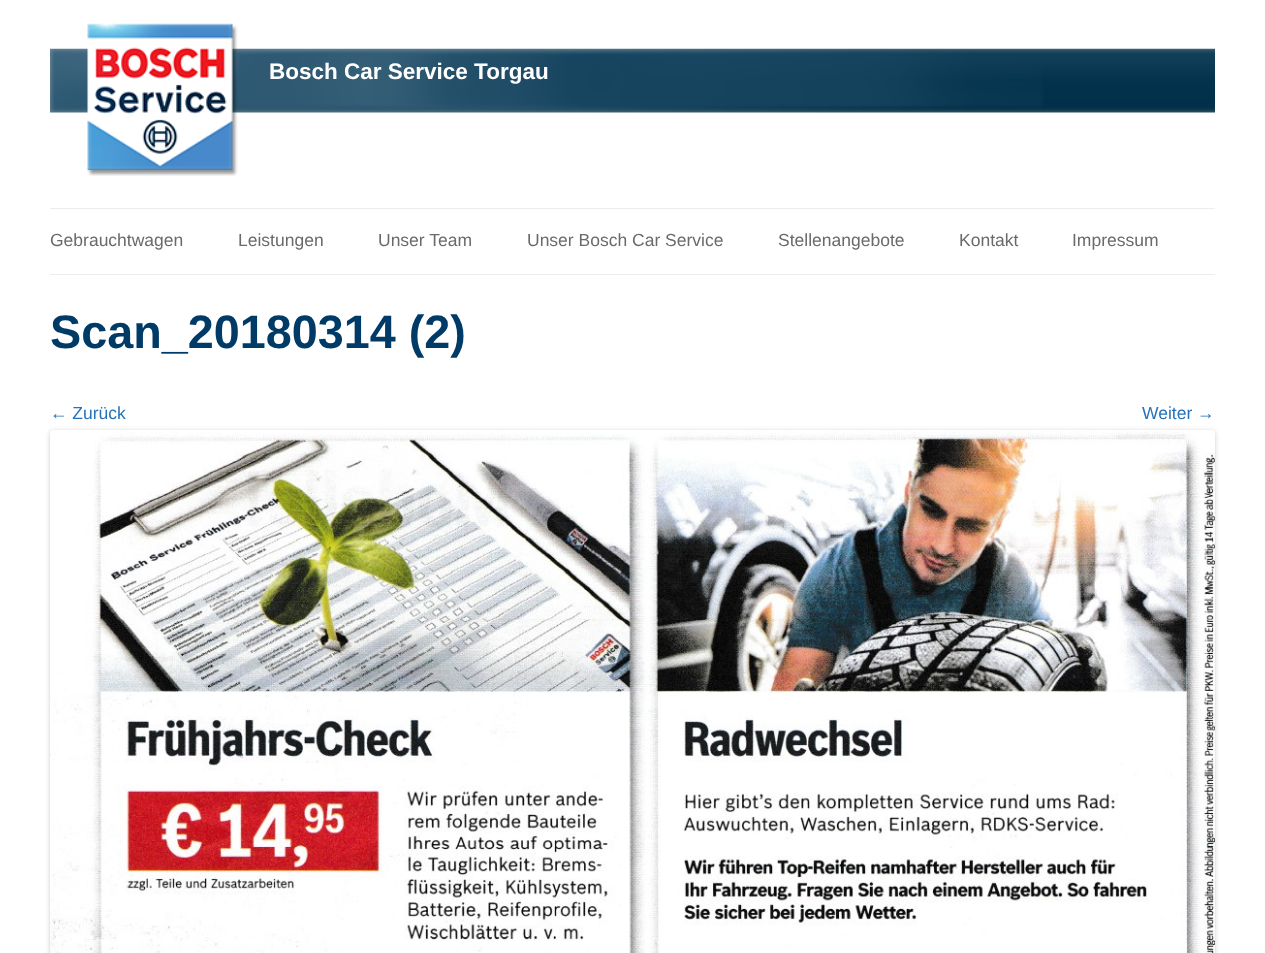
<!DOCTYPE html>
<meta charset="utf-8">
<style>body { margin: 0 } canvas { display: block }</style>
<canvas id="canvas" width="1265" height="953"></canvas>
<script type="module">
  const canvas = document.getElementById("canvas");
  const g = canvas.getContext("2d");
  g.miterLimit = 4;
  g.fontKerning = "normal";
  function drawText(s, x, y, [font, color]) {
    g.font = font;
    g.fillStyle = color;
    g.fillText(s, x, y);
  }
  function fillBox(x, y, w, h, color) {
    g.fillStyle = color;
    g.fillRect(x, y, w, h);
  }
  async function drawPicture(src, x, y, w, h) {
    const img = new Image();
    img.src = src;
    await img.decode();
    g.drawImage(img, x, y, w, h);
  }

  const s1 = ["bold 22.5px Liberation Sans", "#FFFFFF"];
  const s2 = ["17.5px Liberation Sans", "#6A6A6A"];
  const s3 = ["bold 46.75px Liberation Sans", "#003B67"];
  const s4 = ["17.5px Liberation Sans", "#2673B9"];

  fillBox(0, 0, 1265, 953, "#FFFFFF");
  await drawPicture("pic1.png", 50, 23, 1165, 153);
  drawText("Bosch Car Service Torgau", 269, 79, s1);
  fillBox(50, 208, 1165, 1, "#EDEDED");
  fillBox(50, 274, 1165, 1, "#EDEDED");
  drawText("Gebrauchtwagen", 50, 246, s2);
  drawText("Leistungen", 238, 246, s2);
  drawText("Unser Team", 378, 246, s2);
  drawText("Unser Bosch Car Service", 527, 246, s2);
  drawText("Stellenangebote", 778, 246, s2);
  drawText("Kontakt", 959, 246, s2);
  drawText("Impressum", 1072, 246, s2);
  drawText("Scan_20180314 (2)", 50, 348, s3);
  drawText("← Zurück", 50, 419, s4);
  drawText("Weiter →", 1142, 419, s4);
  g.fillStyle = "rgba(0, 0, 0, 0.2)";
  g.filter = "blur(2.5px)";
  g.beginPath();
  g.roundRect(50, 431, 1165, 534, 4);
  g.fill();
  g.filter = "none";
  await drawPicture("pic2.png", 50, 430, 1165, 523);
</script>
